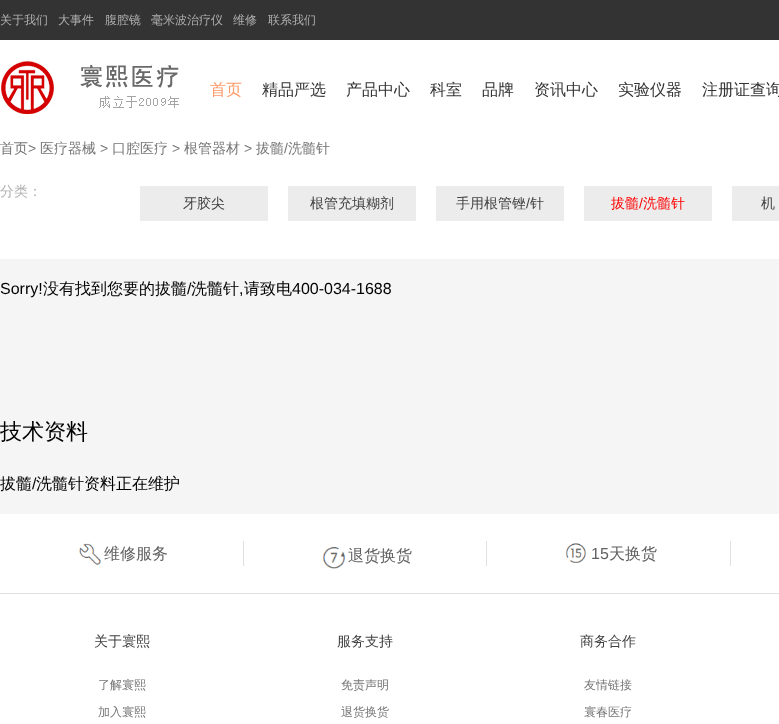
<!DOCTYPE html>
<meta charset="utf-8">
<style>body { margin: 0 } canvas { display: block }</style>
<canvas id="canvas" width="779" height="724"></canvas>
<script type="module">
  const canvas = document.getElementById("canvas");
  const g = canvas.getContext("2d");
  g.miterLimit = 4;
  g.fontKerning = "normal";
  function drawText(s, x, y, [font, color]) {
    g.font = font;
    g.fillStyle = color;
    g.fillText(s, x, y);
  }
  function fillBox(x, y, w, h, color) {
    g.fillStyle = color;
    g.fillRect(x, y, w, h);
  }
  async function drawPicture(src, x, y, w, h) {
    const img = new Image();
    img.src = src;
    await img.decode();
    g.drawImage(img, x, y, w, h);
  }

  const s1 = ["500 12px WenQuanYi Zen Hei", "#B0B0B0"];
  const s2 = ["500 16px WenQuanYi Zen Hei", "#FF9966"];
  const s3 = ["500 16px WenQuanYi Zen Hei", "#333333"];
  const s4 = ["500 14px WenQuanYi Zen Hei", "#757575"];
  const s5 = ["14px Liberation Sans", "#757575"];
  const s6 = ["500 14px WenQuanYi Zen Hei", "#B0B0B0"];
  const s7 = ["500 14px WenQuanYi Zen Hei", "#424242"];
  const s8 = ["14px Liberation Sans", "#424242"];
  const s9 = ["500 14px WenQuanYi Zen Hei", "#FF0000"];
  const s10 = ["14px Liberation Sans", "#FF0000"];
  const s11 = ["16px Liberation Sans", "#000000"];
  const s12 = ["500 16px WenQuanYi Zen Hei", "#000000"];
  const s13 = ["500 22px WenQuanYi Zen Hei", "#000000"];
  const s14 = ["500 16px WenQuanYi Zen Hei", "#616161"];
  const s15 = ["16px Liberation Sans", "#616161"];
  const s16 = ["500 12px WenQuanYi Zen Hei", "#757575"];

  fillBox(0, 0, 779, 724, "#F5F5F5");
  fillBox(0, 40, 779, 219, "#FFFFFF");
  fillBox(0, 0, 779, 40, "#333333");
  drawText("关于我们", 0, 24, s1);
  drawText("大事件", 58, 24, s1);
  drawText("腹腔镜", 105, 24, s1);
  drawText("毫米波治疗仪", 151, 24, s1);
  drawText("维修", 233, 24, s1);
  drawText("联系我们", 268, 24, s1);
  await drawPicture("pic1.png", 1, 61, 178, 53);
  drawText("首页", 210, 95, s2);
  drawText("精品严选", 262, 95, s3);
  drawText("产品中心", 346, 95, s3);
  drawText("科室", 430, 95, s3);
  drawText("品牌", 482, 95, s3);
  drawText("资讯中心", 534, 95, s3);
  drawText("实验仪器", 618, 95, s3);
  drawText("注册证查询", 702, 95, s3);
  drawText("首页", 0, 153, s4);
  drawText(">", 28, 153, s5);
  drawText("医疗器械", 40, 153, s4);
  drawText(">", 100, 153, s5);
  drawText("口腔医疗", 112, 153, s4);
  drawText(">", 172, 153, s5);
  drawText("根管器材", 184, 153, s4);
  drawText(">", 244, 153, s5);
  drawText("拔髓", 256, 153, s4);
  drawText("/", 284, 153, s5);
  drawText("洗髓针", 288, 153, s4);
  drawText("分类：", 0, 196, s6);
  fillBox(140, 186, 128, 35, "#ECECEC");
  drawText("牙胶尖", 183, 208, s7);
  fillBox(288, 186, 128, 35, "#ECECEC");
  drawText("根管充填糊剂", 310, 208, s7);
  fillBox(436, 186, 128, 35, "#ECECEC");
  drawText("手用根管锉", 456, 208, s7);
  drawText("/", 526, 208, s8);
  drawText("针", 530, 208, s7);
  fillBox(584, 186, 128, 35, "#ECECEC");
  drawText("拔髓", 611, 208, s9);
  drawText("/", 639, 208, s10);
  drawText("洗髓针", 643, 208, s9);
  fillBox(732, 186, 47, 35, "#ECECEC");
  drawText("机", 761, 208, s7);
  drawText("Sorry!", 0, 294, s11);
  drawText("没有找到您要的拔髓", 43, 294, s12);
  drawText("/", 187, 294, s11);
  drawText("洗髓针", 191, 294, s12);
  drawText(",", 239, 294, s11);
  drawText("请致电", 244, 294, s12);
  drawText("400-034-1688", 292, 294, s11);
  drawText("技术资料", 0, 439, s13);
  drawText("拔髓", 0, 489, s12);
  drawText("/", 32, 489, s11);
  drawText("洗髓针资料正在维护", 36, 489, s12);
  fillBox(0, 514, 779, 210, "#FFFFFF");
  fillBox(0, 593, 779, 1, "#E0E0E0");
  await drawPicture("pic2.png", 79, 543, 23, 22);
  drawText("维修服务", 104, 559, s14);
  fillBox(243, 541, 1, 25, "#E0E0E0");
  await drawPicture("pic3.png", 322, 547, 24, 22);
  drawText("退货换货", 348, 561, s14);
  fillBox(486, 541, 1, 25, "#E0E0E0");
  await drawPicture("pic4.png", 565, 543, 21, 20);
  drawText("15", 591, 559, s15);
  drawText("天换货", 609, 559, s14);
  fillBox(730, 541, 1, 25, "#E0E0E0");
  drawText("关于寰熙", 94, 646, s7);
  drawText("了解寰熙", 98, 689, s16);
  drawText("加入寰熙", 98, 716, s16);
  drawText("服务支持", 337, 646, s7);
  drawText("免责声明", 341, 689, s16);
  drawText("退货换货", 341, 716, s16);
  drawText("商务合作", 580, 646, s7);
  drawText("友情链接", 584, 689, s16);
  drawText("寰春医疗", 584, 716, s16);
</script>
